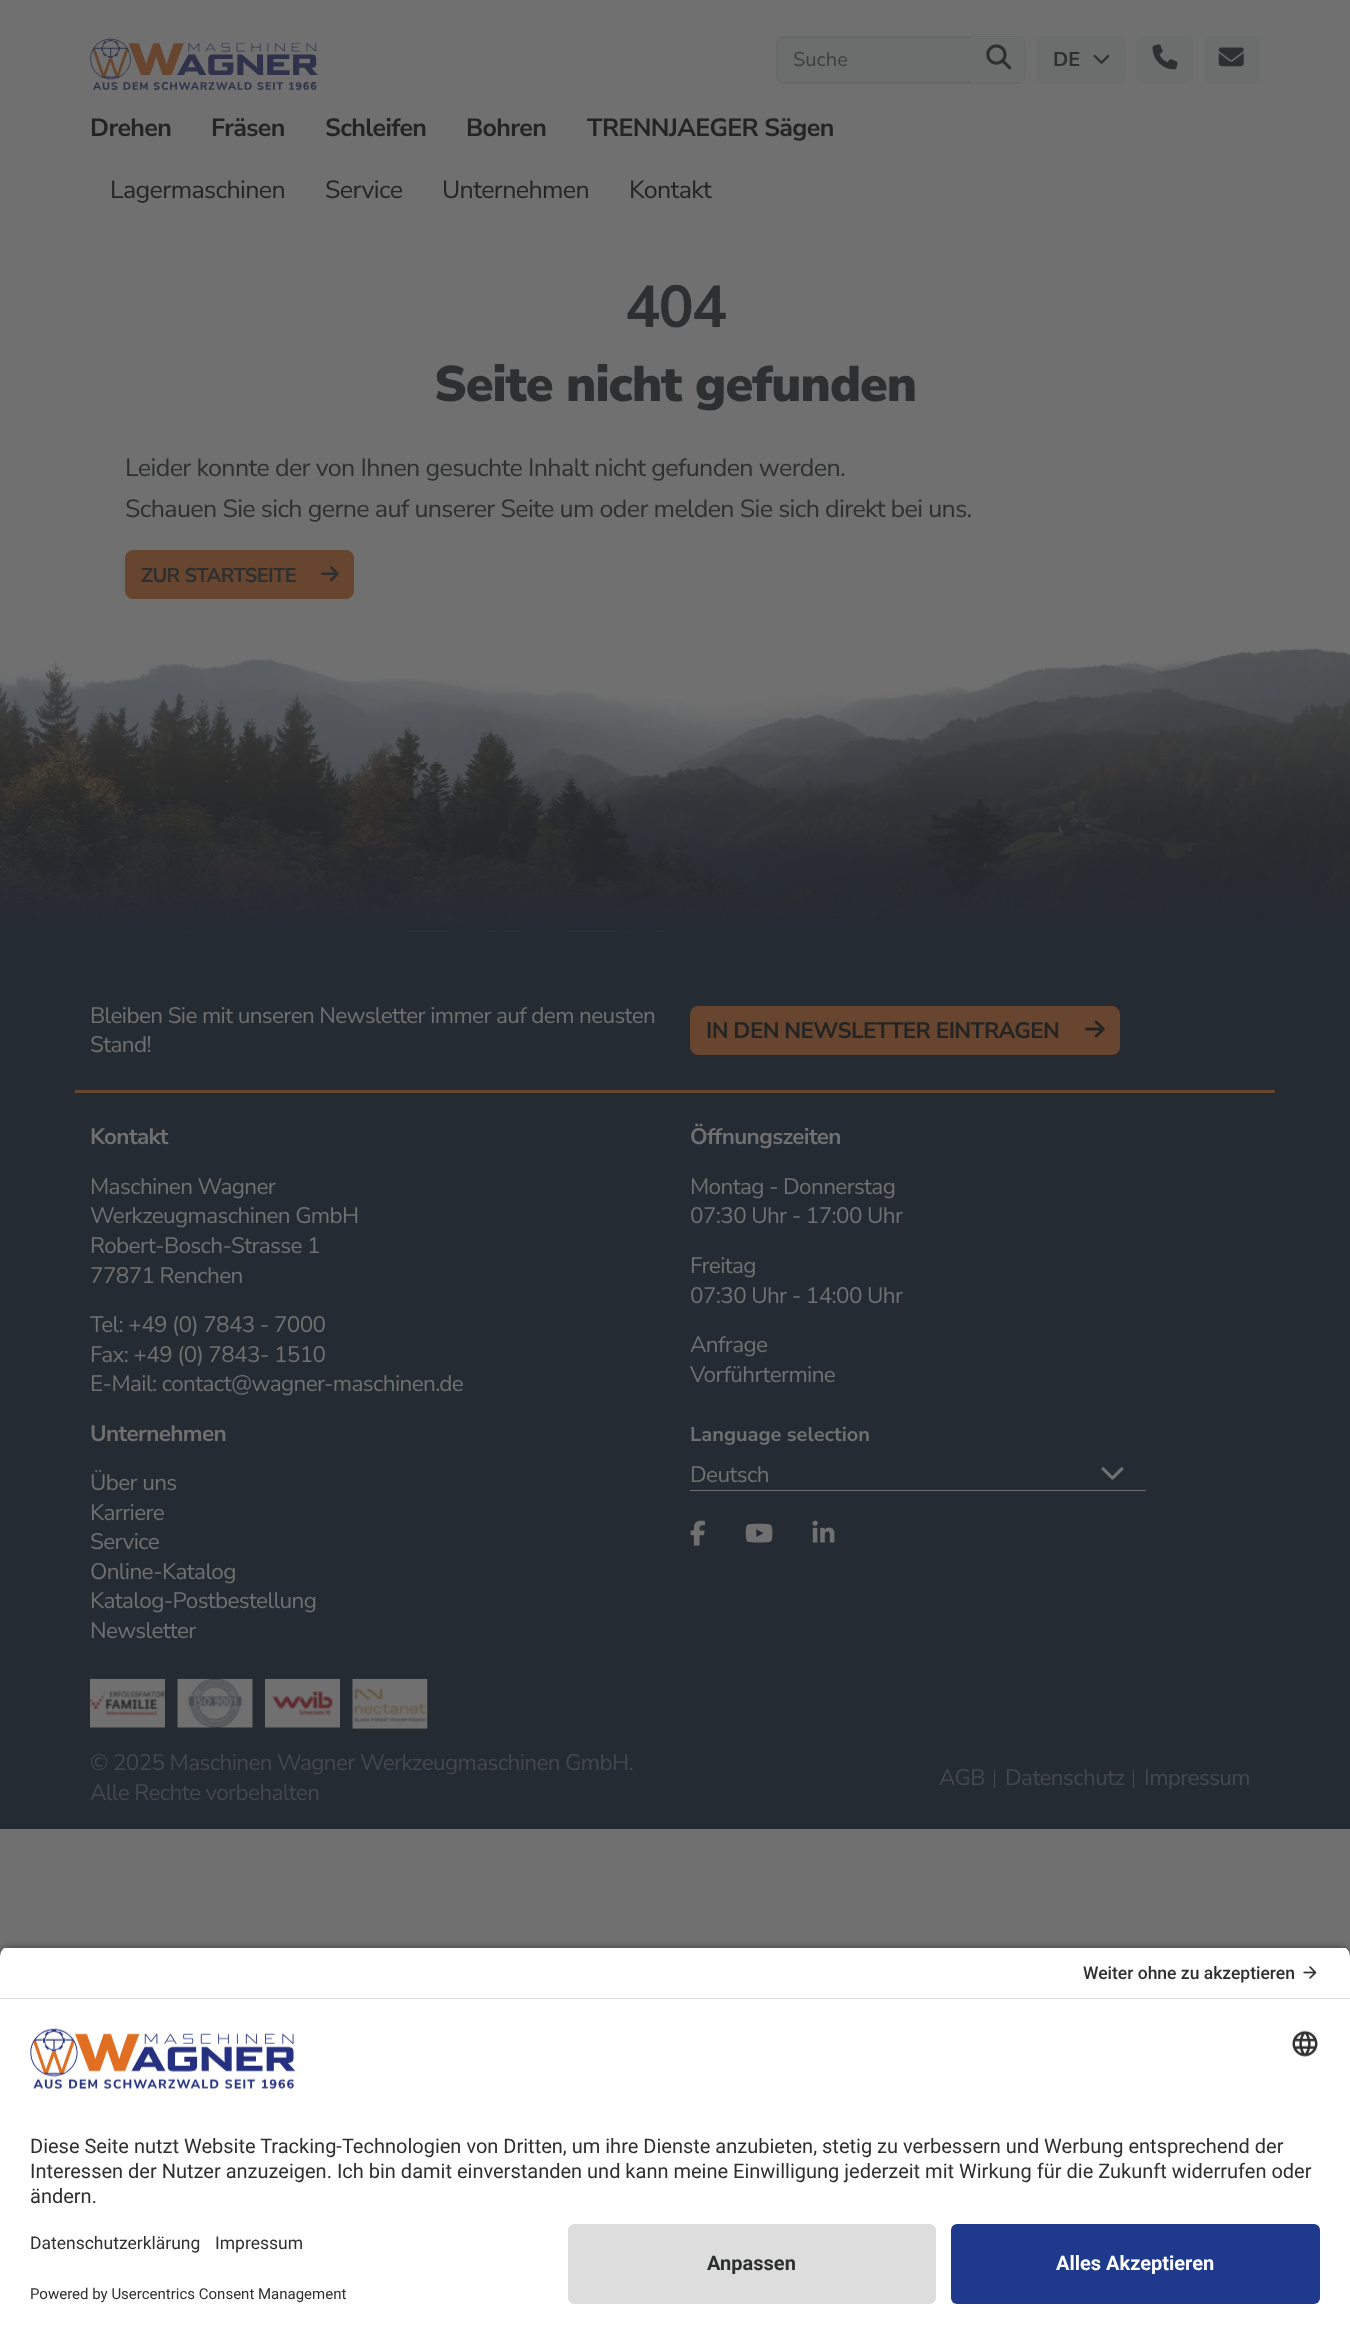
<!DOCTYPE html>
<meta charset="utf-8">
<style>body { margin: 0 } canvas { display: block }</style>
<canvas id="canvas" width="1350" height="2333"></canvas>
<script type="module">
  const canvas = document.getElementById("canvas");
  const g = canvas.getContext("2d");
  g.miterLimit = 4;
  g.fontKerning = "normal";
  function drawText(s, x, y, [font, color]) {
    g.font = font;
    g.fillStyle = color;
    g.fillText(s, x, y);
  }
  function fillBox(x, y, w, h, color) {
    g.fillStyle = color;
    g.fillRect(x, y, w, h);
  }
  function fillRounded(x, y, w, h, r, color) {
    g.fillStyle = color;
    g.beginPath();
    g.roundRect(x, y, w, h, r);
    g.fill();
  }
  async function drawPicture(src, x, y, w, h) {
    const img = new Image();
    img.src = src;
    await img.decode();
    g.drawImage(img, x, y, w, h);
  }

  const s1 = ["200 20px 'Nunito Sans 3'", "#3D3E3F"];
  const s2 = ["200 20px Nunito Sans", "#2E2F30"];
  const s3 = ["200 25px Nunito Sans", "#242424"];
  const s4 = ["200 25px 'Nunito Sans 3'", "#242424"];
  const s5 = ["200 59px Nunito Sans", "#2E2F30"];
  const s6 = ["200 50px 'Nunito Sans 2'", "#2E2F30"];
  const s7 = ["200 25px 'Nunito Sans 3'", "#2E2F30"];
  const s8 = ["200 22.5px 'Nunito Sans 3'", "#707070"];
  const s9 = ["200 22.5px Nunito Sans", "#242424"];
  const s10 = ["200 22.5px Nunito Sans", "#707070"];
  const s11 = ["200 20px Nunito Sans", "#707070"];
  const s12 = ["200 22.5px 'Nunito Sans 3'", "#44474C"];
  const s13 = ["500 17.5px Roboto", "#2E2F30"];
  const s14 = ["20px Roboto", "#2E2F30"];
  const s15 = ["17.5px Roboto", "#2E2F30"];
  const s16 = ["15px Roboto", "#2E2F30"];
  const s17 = ["bold 20px Roboto", "#2E2F30"];
  const s18 = ["bold 20px Roboto", "#FFFFFF"];

  fillBox(0, 0, 1350, 2333, "#707070");
  await drawPicture("pic1.png", 90, 38, 228, 52);
  g.beginPath();
  g.roundRect(970.5, 36.5, 55, 47, [0, 7.5, 7.5, 0]);
  g.strokeStyle = "#666869";
  g.stroke();
  g.fillStyle = "#6C6D6D";
  g.beginPath();
  g.roundRect(778, 38, 193, 45, [6, 0, 0, 6]);
  g.fill();
  g.fillStyle = "#666869";
  g.beginPath();
  g.moveTo(784, 36);
  g.lineTo(971, 36);
  g.lineTo(971, 84);
  g.lineTo(784, 84);
  g.bezierCurveTo(780, 84, 776, 80, 776, 76);
  g.lineTo(776, 44);
  g.bezierCurveTo(776, 40, 780, 36, 784, 36);
  g.closePath();
  g.moveTo(784, 38);
  g.lineTo(971, 38);
  g.lineTo(971, 82);
  g.lineTo(784, 82);
  g.bezierCurveTo(780, 82, 778, 80, 778, 76);
  g.lineTo(778, 44);
  g.bezierCurveTo(778, 40, 780, 38, 784, 38);
  g.closePath();
  g.fill("evenodd");
  drawText("Suche", 793, 66, s1);
  fillRounded(971, 38, 54, 45, 8, "#6C6D6D");
  await drawPicture("pic2.png", 986, 44, 26, 26);
  fillRounded(1036, 36, 90, 48, 8, "#6C6D6D");
  drawText("DE", 1053, 66, s2);
  await drawPicture("pic3.png", 1093, 54, 17, 10);
  fillRounded(1136, 36, 57, 48, 8, "#6C6D6D");
  await drawPicture("pic4.png", 1152, 44, 26, 26);
  fillRounded(1203, 36, 57, 48, 8, "#6C6D6D");
  await drawPicture("pic5.png", 1218, 47, 26, 20);
  g.letterSpacing = "-0.62px";
  drawText("Drehen", 90, 136, s3);
  drawText("Fräsen", 211, 136, s3);
  drawText("Schleifen", 325, 136, s3);
  drawText("Bohren", 466, 136, s3);
  drawText("TRENNJAEGER Sägen", 587, 136, s3);
  drawText("Lagermaschinen", 110, 198, s4);
  drawText("Service", 325, 198, s4);
  drawText("Unternehmen", 442, 198, s4);
  drawText("Kontakt", 629, 198, s4);
  g.letterSpacing = "-2px";
  drawText("404", 625, 327, s5);
  g.letterSpacing = "-0.9px";
  drawText("Seite nicht gefunden", 434, 401, s6);
  g.letterSpacing = "-0.62px";
  drawText("Leider konnte der von Ihnen gesuchte Inhalt nicht gefunden werden.", 125, 476, s7);
  drawText("Schauen Sie sich gerne auf unserer Seite um oder melden Sie sich direkt bei uns.", 125, 517, s7);
  g.fillStyle = "#67452E";
  g.beginPath();
  g.roundRect(125.5, 550.5, 228, 48, 7.5);
  g.fill();
  g.strokeStyle = "#67452E";
  g.stroke();
  drawText("ZUR STARTSEITE", 141, 582, s2);
  await drawPicture("pic6.png", 321, 566, 18, 16);
  fillBox(0, 931, 1350, 898, "#252B33");
  await drawPicture("pic7.png", 0, 646, 1350, 286);
  fillBox(75, 1090, 1200, 3, "#67452E");
  drawText("Bleiben Sie mit unseren Newsletter immer auf dem neusten", 90, 1023, s8);
  drawText("Stand!", 90, 1052, s8);
  g.fillStyle = "#67452E";
  g.beginPath();
  g.roundRect(690.5, 1006.5, 429, 48, 7.5);
  g.fill();
  g.stroke();
  drawText("IN DEN NEWSLETTER EINTRAGEN", 706, 1038, s9);
  await drawPicture("pic8.png", 1085, 1020, 20, 18);
  drawText("Kontakt", 90, 1144, s10);
  drawText("Maschinen Wagner", 90, 1194, s8);
  drawText("Werkzeugmaschinen GmbH", 90, 1223, s8);
  drawText("Robert-Bosch-Strasse 1", 90, 1253, s8);
  drawText("77871 Renchen", 90, 1283, s8);
  drawText("Tel: +49 (0) 7843 - 7000", 90, 1332, s8);
  drawText("Fax: +49 (0) 7843- 1510", 90, 1362, s8);
  drawText("E-Mail: contact@wagner-maschinen.de", 90, 1391, s8);
  drawText("Öffnungszeiten", 690, 1144, s10);
  drawText("Montag - Donnerstag", 690, 1194, s8);
  drawText("07:30 Uhr - 17:00 Uhr", 690, 1223, s8);
  drawText("Freitag", 690, 1273, s8);
  drawText("07:30 Uhr - 14:00 Uhr", 690, 1303, s8);
  drawText("Anfrage", 690, 1352, s8);
  drawText("Vorführtermine", 690, 1382, s8);
  drawText("Unternehmen", 90, 1441, s10);
  drawText("Über uns", 90, 1490, s8);
  drawText("Karriere", 90, 1520, s8);
  drawText("Service", 90, 1549, s8);
  drawText("Online-Katalog", 90, 1579, s8);
  drawText("Katalog-Postbestellung", 90, 1608, s8);
  drawText("Newsletter", 90, 1638, s8);
  await drawPicture("pic9.png", 90, 1678, 75, 50);
  await drawPicture("pic10.png", 177, 1678, 76, 50);
  await drawPicture("pic11.png", 265, 1678, 75, 50);
  await drawPicture("pic12.png", 352, 1678, 76, 51);
  g.letterSpacing = "0px";
  drawText("Language selection", 690, 1441, s11);
  fillBox(690, 1490, 456, 1, "#707070");
  g.letterSpacing = "-0.62px";
  drawText("Deutsch", 690, 1482, s8);
  await drawPicture("pic13.png", 1101, 1467, 23, 13);
  await drawPicture("pic14.png", 690, 1520, 15, 26);
  await drawPicture("pic15.png", 745, 1523, 28, 20);
  await drawPicture("pic16.png", 812, 1520, 23, 23);
  drawText("© 2025 Maschinen Wagner Werkzeugmaschinen GmbH.", 90, 1770, s12);
  drawText("Alle Rechte vorbehalten", 90, 1800, s12);
  drawText("AGB", 939, 1785, s12);
  fillBox(994, 1770, 1, 18, "#44474C");
  drawText("Datenschutz", 1005, 1785, s12);
  fillBox(1133, 1770, 1, 18, "#44474C");
  drawText("Impressum", 1144, 1785, s12);
  g.fillStyle = "rgba(0, 0, 0, 0.8)";
  g.filter = "blur(4.5px)";
  g.beginPath();
  g.roundRect(0, 1950, 1350, 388, 10);
  g.fill();
  g.filter = "none";
  g.save();
  g.beginPath();
  g.roundRect(0, 1946, 1350, 268, [10, 10, 0, 0]);
  g.clip();
  fillBox(0, 1948, 1350, 50, "#FFFFFF");
  g.restore();
  fillBox(0, 1998, 1350, 1, "#DEDEDE");
  g.letterSpacing = "0px";
  drawText("Weiter ohne zu akzeptieren", 1083, 1979, s13);
  await drawPicture("pic17.png", 1303, 1966, 14, 13);
  fillBox(0, 1999, 1350, 334, "#FFFFFF");
  await drawPicture("pic18.png", 30, 2028, 266, 61);
  await drawPicture("pic19.png", 1292, 2030, 26, 27);
  drawText("Diese Seite nutzt Website Tracking-Technologien von Dritten, um ihre Dienste anzubieten, stetig zu verbessern und Werbung entsprechend der", 30, 2153, s14);
  drawText("Interessen der Nutzer anzuzeigen. Ich bin damit einverstanden und kann meine Einwilligung jederzeit mit Wirkung für die Zukunft widerrufen oder", 30, 2178, s14);
  drawText("ändern.", 30, 2203, s14);
  drawText("Datenschutzerklärung", 30, 2249, s15);
  drawText("Impressum", 215, 2249, s15);
  drawText("Powered by Usercentrics Consent Management", 30, 2299, s16);
  fillRounded(568, 2224, 368, 80, 6, "#DDDDDD");
  drawText("Anpassen", 707, 2270, s17);
  fillRounded(951, 2224, 369, 80, 6, "#1F398D");
  drawText("Alles Akzeptieren", 1056, 2270, s18);
</script>
